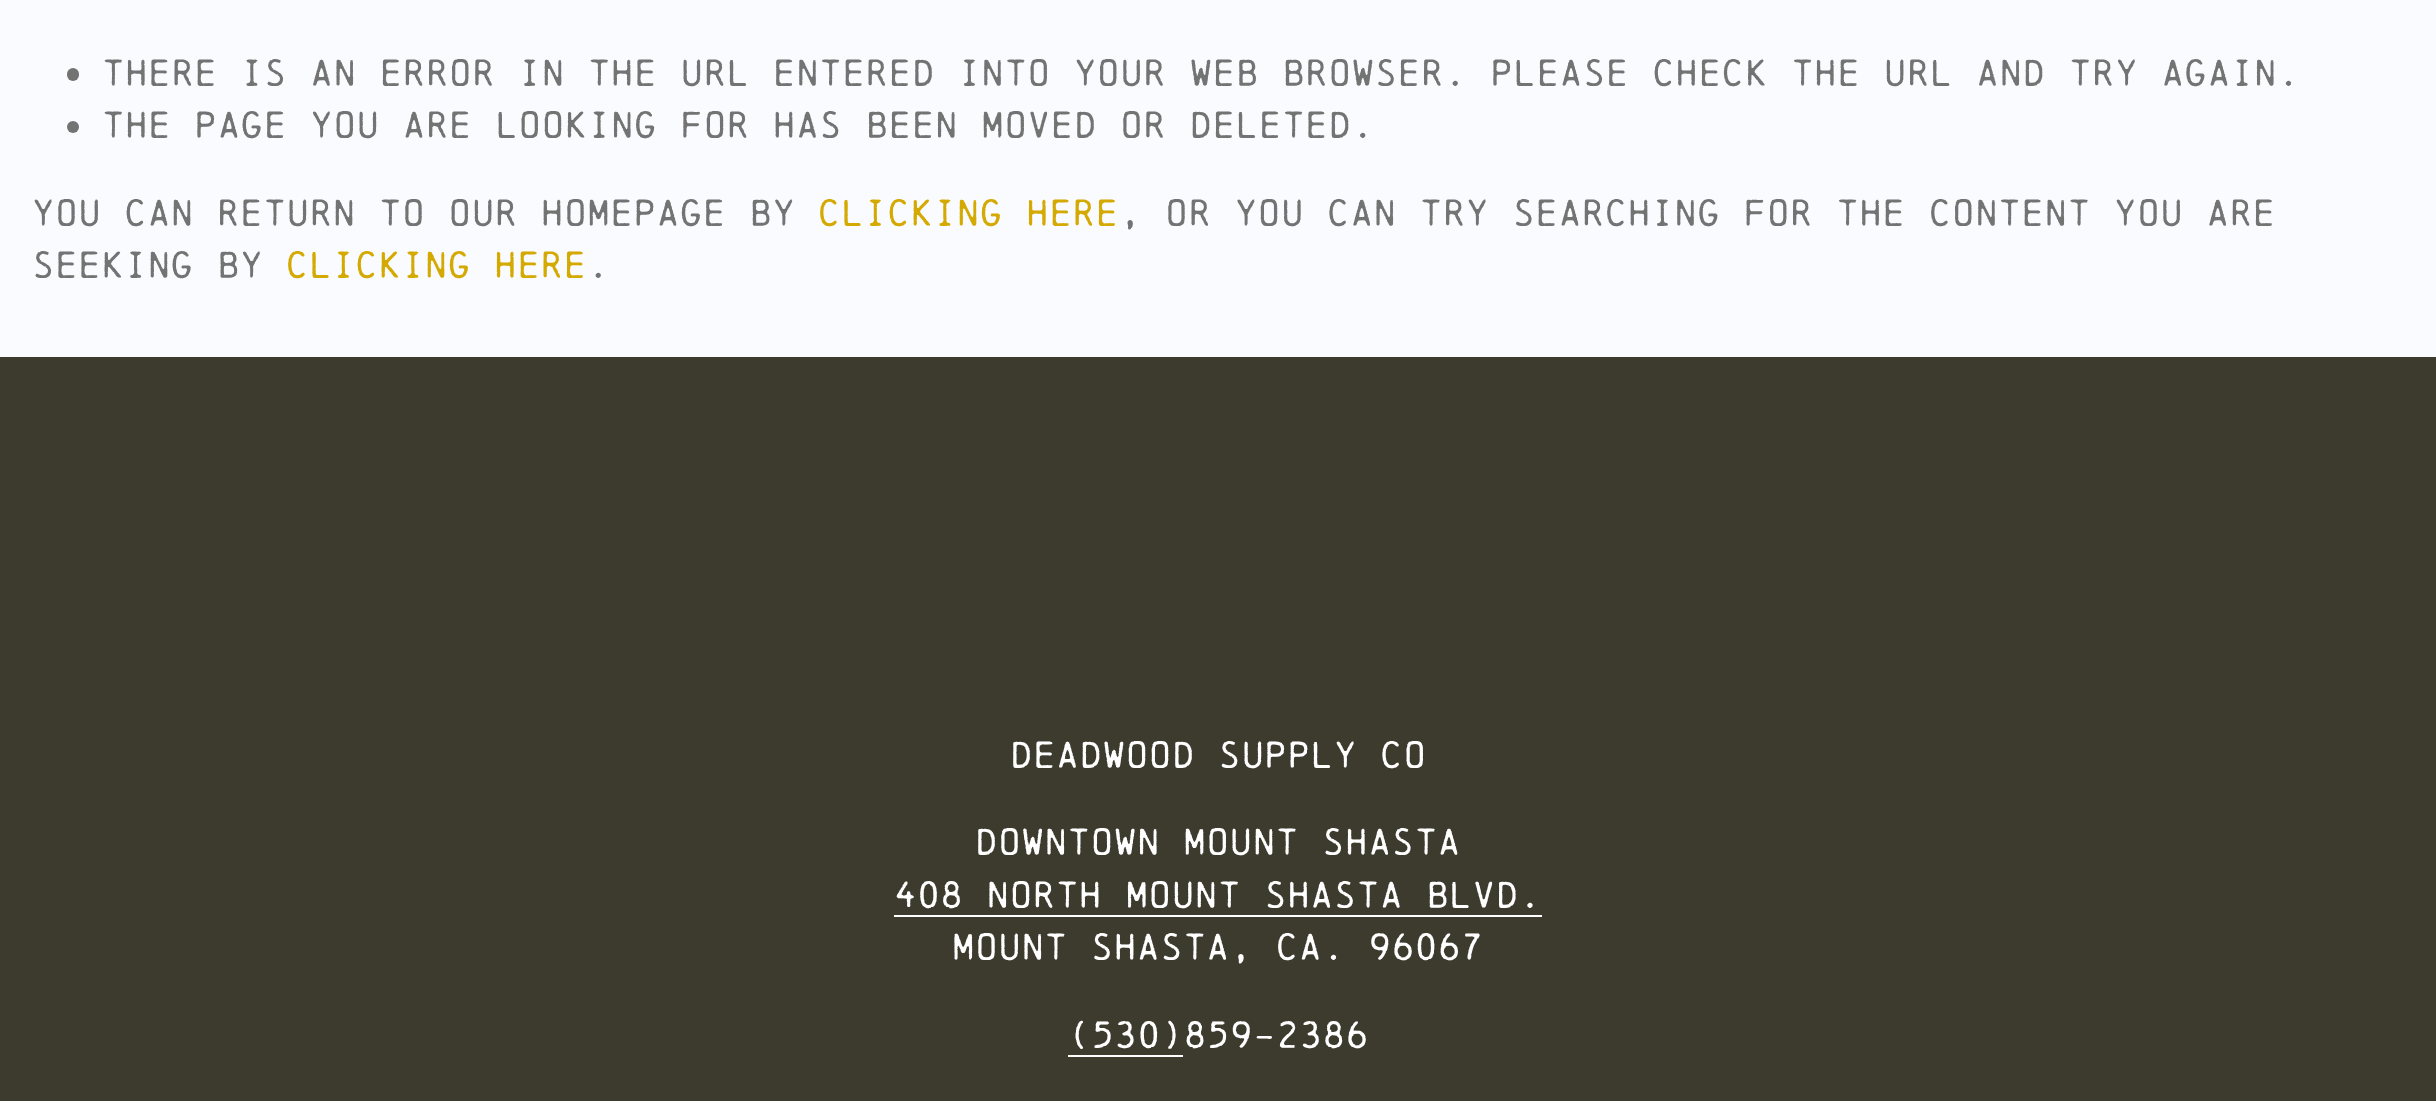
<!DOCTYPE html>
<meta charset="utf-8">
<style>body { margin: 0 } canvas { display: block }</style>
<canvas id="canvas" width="2436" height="1101"></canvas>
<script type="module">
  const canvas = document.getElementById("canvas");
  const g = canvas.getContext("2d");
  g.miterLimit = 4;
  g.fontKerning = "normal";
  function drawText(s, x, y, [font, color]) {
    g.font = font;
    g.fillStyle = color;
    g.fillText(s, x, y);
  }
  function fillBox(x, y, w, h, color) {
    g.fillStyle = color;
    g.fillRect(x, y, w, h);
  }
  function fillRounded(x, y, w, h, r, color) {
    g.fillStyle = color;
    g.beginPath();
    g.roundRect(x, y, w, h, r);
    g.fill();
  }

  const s1 = ["35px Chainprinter", "#737373"];
  const s2 = ["35px Chainprinter", "#D4AA02"];
  const s3 = ["35px Chainprinter", "#FFFFFF"];

  fillBox(0, 0, 2436, 1101, "#FAFBFF");
  fillRounded(67, 68, 12, 13, 6, "#737373");
  g.letterSpacing = "0.53px";
  drawText("There is an error in the URL entered into your web browser. Please check the URL and try again.", 102, 86, s1);
  g.beginPath();
  g.arc(73, 127, 6, 0, Math.PI * 2);
  g.fill();
  drawText("The page you are looking for has been moved or deleted.", 102, 138, s1);
  drawText("You can return to our homepage by", 32, 226, s1);
  drawText("clicking here", 818, 226, s2);
  drawText(", or you can try searching for the content you are", 1119, 226, s1);
  drawText("seeking by", 32, 278, s1);
  drawText("clicking here", 286, 278, s2);
  drawText(".", 587, 278, s1);
  fillBox(0, 357, 2436, 744, "#3D3A2E");
  drawText("DEADWOOD SUPPLY CO", 1010, 768, s3);
  drawText("Downtown Mount shasta", 975, 855, s3);
  drawText("408 north Mount Shasta Blvd.", 894, 908, s3);
  fillBox(894, 915, 648, 2, "#FFFFFF");
  drawText("Mount Shasta, CA. 96067", 952, 960, s3);
  drawText("(530)859-2386", 1068, 1048, s3);
  fillBox(1068, 1055, 115, 2, "#FFFFFF");
</script>
